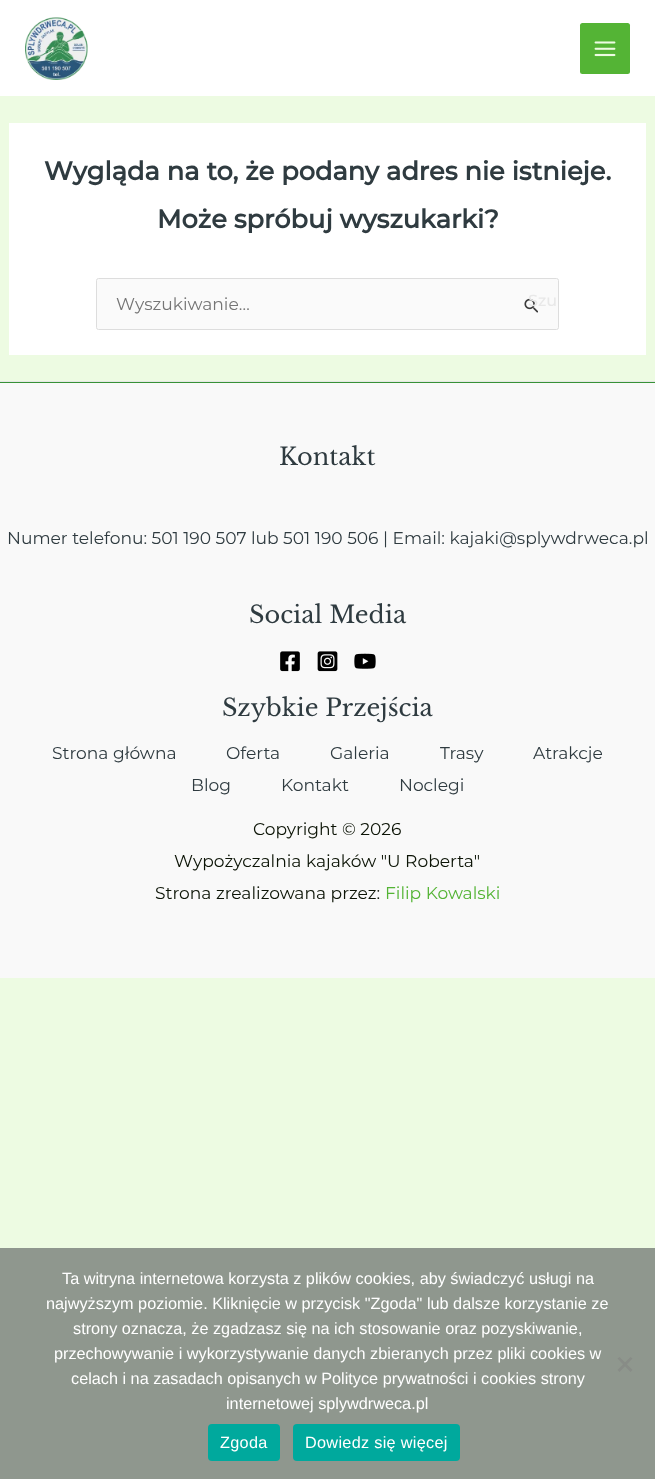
<!DOCTYPE html>
<meta charset="utf-8">
<style>body { margin: 0 } canvas { display: block }</style>
<canvas id="canvas" width="655" height="1479"></canvas>
<script type="module">
  const canvas = document.getElementById("canvas");
  const g = canvas.getContext("2d");
  g.miterLimit = 4;
  g.fontKerning = "normal";
  function drawText(s, x, y, [font, color]) {
    g.font = font;
    g.fillStyle = color;
    g.fillText(s, x, y);
  }
  function fillBox(x, y, w, h, color) {
    g.fillStyle = color;
    g.fillRect(x, y, w, h);
  }
  function fillRounded(x, y, w, h, r, color) {
    g.fillStyle = color;
    g.beginPath();
    g.roundRect(x, y, w, h, r);
    g.fill();
  }
  async function drawPicture(src, x, y, w, h) {
    const img = new Image();
    img.src = src;
    await img.decode();
    g.drawImage(img, x, y, w, h);
  }

  const s1 = ["bold 25.65px Montserrat", "#2F3B40"];
  const s2 = ["17.1px Montserrat", "#757575"];
  const s3 = ["500 16px Montserrat", "#E8E8E8"];
  const s4 = ["24px Libre Baskerville", "#2F3B40"];
  const s5 = ["17.1px Montserrat", "#2F3B40"];
  const s6 = ["17.1px Montserrat", "#0C1406"];
  const s7 = ["17.1px Montserrat", "#54B435"];
  const s8 = ["16.25px Liberation Sans", "#FFFFFF"];

  fillBox(0, 0, 655, 1479, "#EDFBE2");
  fillBox(0, 0, 655, 96, "#FFFFFF");
  await drawPicture("pic1.png", 25, 17, 63, 63);
  fillRounded(580, 23, 50, 51, 2.5, "#54B435");
  await drawPicture("pic2.png", 594, 41, 22, 16);
  fillBox(9, 123, 637, 232, "#FFFFFF");
  drawText("Wygląda na to, że podany adres nie istnieje.", 44, 180, s1);
  drawText("Może spróbuj wyszukarki?", 157, 228, s1);
  g.fillStyle = "#FAFAFA";
  g.beginPath();
  g.roundRect(96.5, 278.5, 462, 51, 2);
  g.fill();
  g.strokeStyle = "#DDDDDD";
  g.stroke();
  drawText("Wyszukiwanie…", 116, 310, s2);
  await drawPicture("pic3.png", 524, 298, 14, 15);
  drawText("Szu", 528, 306, s3);
  fillBox(0, 382, 655, 1, "#379237");
  fillBox(0, 383, 655, 595, "#F9F9F9");
  fillBox(0, 381, 655, 1, "#E6E6E6");
  drawText("Kontakt", 279, 465, s4);
  drawText("Numer telefonu: 501 190 507 lub 501 190 506 | Email: kajaki@splywdrweca.pl", 7, 544, s5);
  drawText("Social Media", 249, 623, s4);
  await drawPicture("pic4.png", 280, 651, 20, 21);
  await drawPicture("pic5.png", 317, 651, 21, 21);
  await drawPicture("pic6.png", 354, 653, 22, 16);
  drawText("Szybkie Przejścia", 222, 716, s4);
  drawText("Strona główna", 52, 759, s5);
  drawText("Oferta", 226, 759, s5);
  drawText("Galeria", 330, 759, s5);
  drawText("Trasy", 440, 759, s5);
  drawText("Atrakcje", 533, 759, s5);
  drawText("Blog", 191, 791, s5);
  drawText("Kontakt", 281, 791, s5);
  drawText("Noclegi", 399, 791, s5);
  drawText("Copyright © 2026", 253, 835, s6);
  drawText("Wypożyczalnia kajaków \"U Roberta\"", 174, 867, s6);
  drawText("Strona zrealizowana przez:", 155, 899, s6);
  drawText("Filip Kowalski", 385, 899, s7);
  fillBox(0, 1248, 655, 231, "#8F978E");
  drawText("Ta witryna internetowa korzysta z plików cookies, aby świadczyć usługi na", 62, 1284, s8);
  drawText("najwyższym poziomie. Kliknięcie w przycisk \"Zgoda\" lub dalsze korzystanie ze", 46, 1309, s8);
  drawText("strony oznacza, że zgadzasz się na ich stosowanie oraz pozyskiwanie,", 73, 1334, s8);
  drawText("przechowywanie i wykorzystywanie danych zbieranych przez pliki cookies w", 54, 1359, s8);
  drawText("celach i na zasadach opisanych w Polityce prywatności i cookies strony", 71, 1384, s8);
  drawText("internetowej splywdrweca.pl", 226, 1409, s8);
  g.fillStyle = "#888C87";
  g.beginPath();
  g.moveTo(630.5, 1357);
  g.lineTo(632.5, 1358.5);
  g.lineTo(619.5, 1372);
  g.lineTo(617.5, 1370);
  g.closePath();
  g.fill();
  g.beginPath();
  g.moveTo(617.5, 1358.5);
  g.lineTo(619.5, 1357);
  g.lineTo(632.5, 1370);
  g.lineTo(630.5, 1372);
  g.closePath();
  g.fill();
  fillRounded(208, 1424, 72, 37, 4, "#00A99D");
  g.letterSpacing = "0.3px";
  drawText("Zgoda", 220, 1448, s8);
  fillRounded(293, 1424, 167, 37, 4, "#00A99D");
  drawText("Dowiedz się więcej", 305, 1448, s8);
</script>
